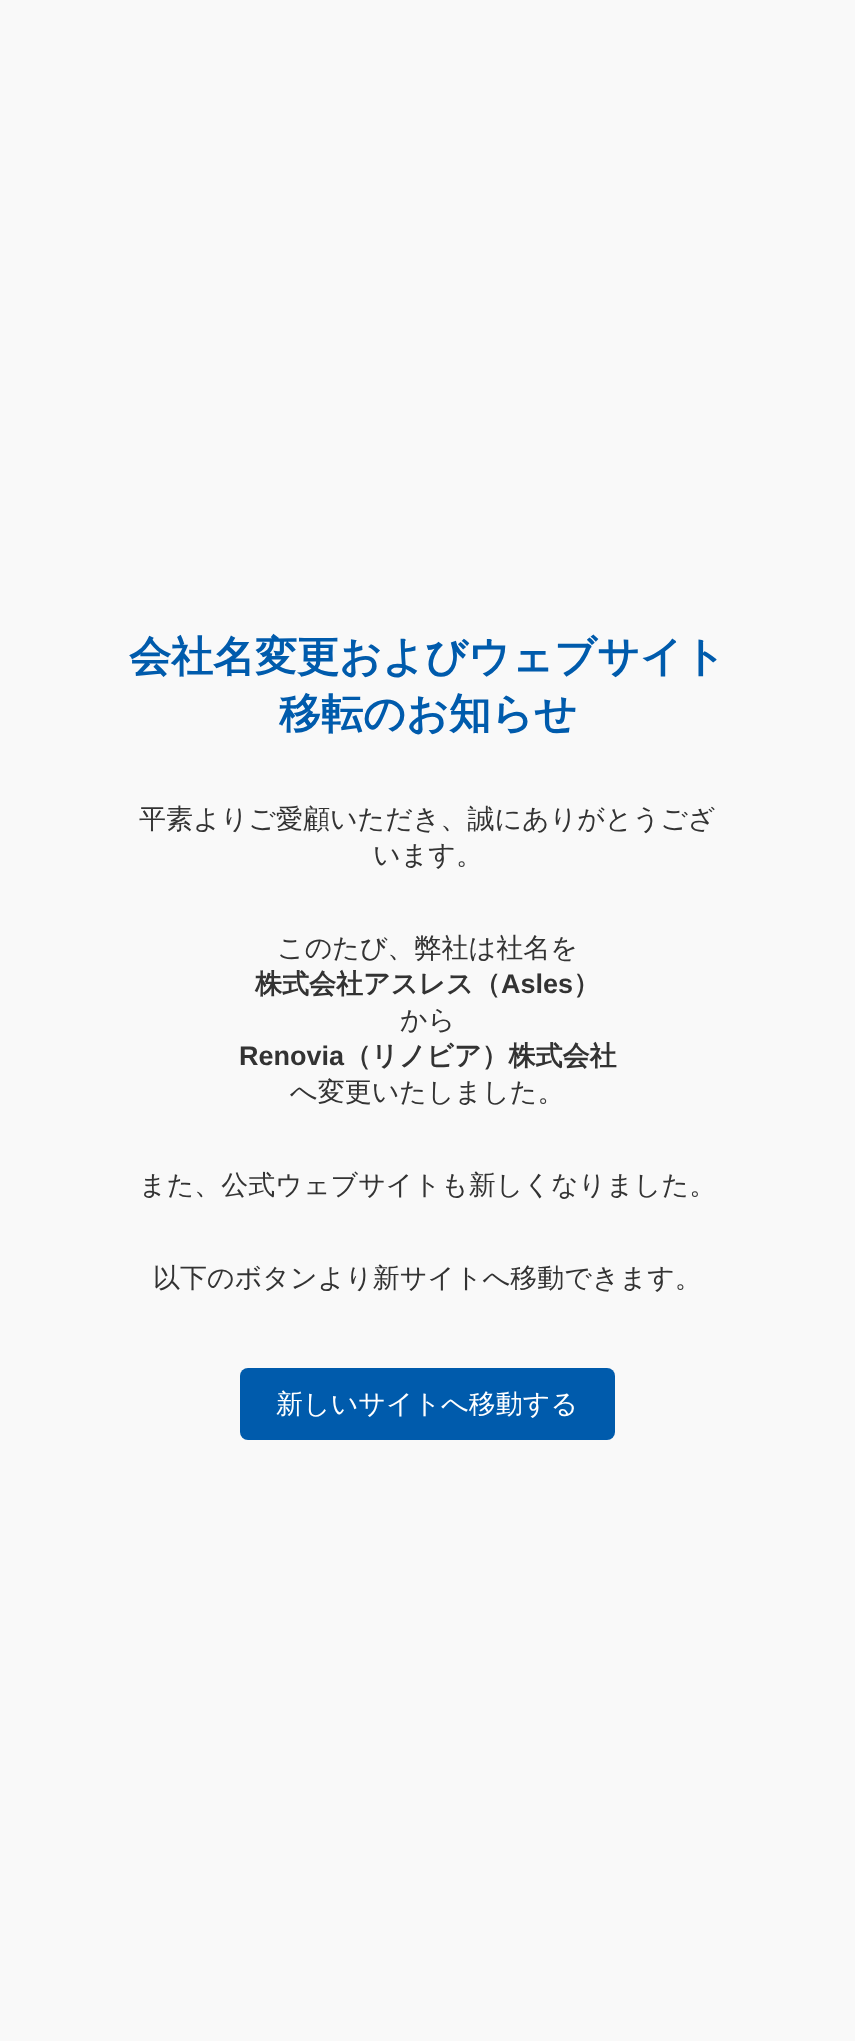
<!DOCTYPE html>
<meta charset="utf-8">
<style>body { margin: 0 } canvas { display: block }</style>
<canvas id="canvas" width="855" height="2041"></canvas>
<script type="module">
  const canvas = document.getElementById("canvas");
  const g = canvas.getContext("2d");
  g.miterLimit = 4;
  g.fontKerning = "normal";
  function drawText(s, x, y, [font, color]) {
    g.font = font;
    g.fillStyle = color;
    g.fillText(s, x, y);
  }
  function fillBox(x, y, w, h, color) {
    g.fillStyle = color;
    g.fillRect(x, y, w, h);
  }
  function fillRounded(x, y, w, h, r, color) {
    g.fillStyle = color;
    g.beginPath();
    g.roundRect(x, y, w, h, r);
    g.fill();
  }

  const s1 = ["bold 42px WenQuanYi Zen Hei", "#005BAC"];
  const s2 = ["500 27px WenQuanYi Zen Hei", "#333333"];
  const s3 = ["bold 27px WenQuanYi Zen Hei", "#333333"];
  const s4 = ["bold 27px Liberation Sans", "#333333"];
  const s5 = ["500 27px WenQuanYi Zen Hei", "#FFFFFF"];

  fillBox(0, 0, 855, 2041, "#F9F9F9");
  drawText("会社名変更およびウェブサイト", 129, 671, s1);
  drawText("移転のお知らせ", 279, 728, s1);
  drawText("平素よりご愛顧いただき、誠にありがとうござ", 139, 828, s2);
  drawText("います。", 373, 864, s2);
  drawText("このたび、弊社は社名を", 277, 957, s2);
  drawText("株式会社アスレス（", 255, 993, s3);
  drawText("Asles", 501, 993, s4);
  drawText("）", 573, 993, s3);
  drawText("から", 400, 1029, s2);
  drawText("Renovia", 239, 1065, s4);
  drawText("（リノビア）株式会社", 344, 1065, s3);
  drawText("へ変更いたしました。", 290, 1101, s2);
  drawText("また、公式ウェブサイトも新しくなりました。", 139, 1194, s2);
  drawText("以下のボタンより新サイトへ移動できます。", 153, 1287, s2);
  fillRounded(240, 1368, 375, 72, 8, "#005BAC");
  drawText("新しいサイトへ移動する", 276, 1413, s5);
</script>
